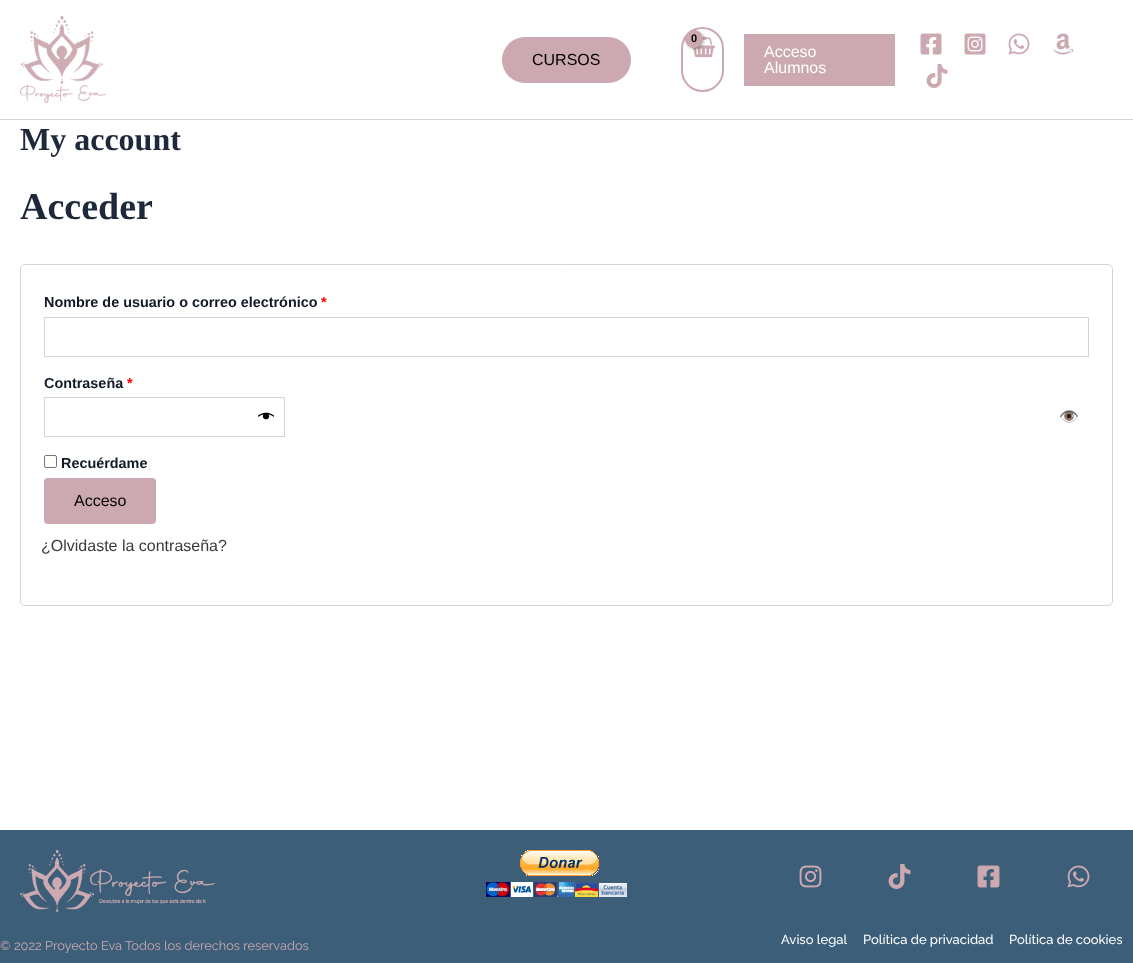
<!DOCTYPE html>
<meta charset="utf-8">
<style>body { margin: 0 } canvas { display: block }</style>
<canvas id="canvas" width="1133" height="963"></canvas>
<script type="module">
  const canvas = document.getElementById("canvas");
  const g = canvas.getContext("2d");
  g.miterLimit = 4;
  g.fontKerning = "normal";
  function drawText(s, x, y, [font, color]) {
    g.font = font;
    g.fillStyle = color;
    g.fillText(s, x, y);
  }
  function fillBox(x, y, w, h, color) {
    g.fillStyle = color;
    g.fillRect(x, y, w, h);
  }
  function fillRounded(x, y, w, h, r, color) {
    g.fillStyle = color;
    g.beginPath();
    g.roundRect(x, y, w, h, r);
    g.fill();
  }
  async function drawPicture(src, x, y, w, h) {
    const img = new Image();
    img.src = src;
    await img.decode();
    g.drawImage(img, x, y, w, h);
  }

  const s1 = ["16px Liberation Sans", "#000000"];
  const s2 = ["bold 11px Liberation Sans", "#000000"];
  const s3 = ["16px Liberation Sans", "#FFFFFF"];
  const s4 = ["bold 32px Liberation Serif", "#1E293B"];
  const s5 = ["bold 38px Liberation Serif", "#1E293B"];
  const s6 = ["bold 14.4px Liberation Sans", "#111827"];
  const s7 = ["bold 14.4px Liberation Sans", "#FF0000"];
  const s8 = ["16px Noto Color Emoji", "#334155"];
  const s9 = ["16px Liberation Sans", "#3A3A3A"];
  const s10 = ["12.8px Raleway", "#CCA9B1"];
  const s11 = ["500 13px Raleway", "#FFFFFF"];

  fillBox(0, 0, 1133, 963, "#FFFFFF");
  fillBox(0, 119, 1133, 1, "#D1D5DB");
  await drawPicture("pic1.png", 20, 16, 86, 87);
  fillRounded(502, 37, 129, 46, 23, "#CCA9B1");
  drawText("CURSOS", 532, 65, s1);
  g.beginPath();
  g.roundRect(682, 28, 41, 63, 20.5);
  g.strokeStyle = "#CCA9B1";
  g.lineWidth = 2;
  g.stroke();
  await drawPicture("pic2.png", 692, 36, 23, 22);
  g.fillStyle = "rgba(0, 0, 0, 0.3)";
  g.filter = "blur(1.5px)";
  g.beginPath();
  g.roundRect(686, 31, 18, 18, 9);
  g.fill();
  g.filter = "none";
  g.fillStyle = "#CCA9B1";
  g.beginPath();
  g.arc(694, 39, 9, 0, Math.PI * 2);
  g.fill();
  drawText("0", 691, 42, s2);
  await drawPicture("pic3.png", 920, 33, 22, 22);
  await drawPicture("pic4.png", 964, 33, 22, 22);
  await drawPicture("pic5.png", 1008, 33, 22, 22);
  await drawPicture("pic6.png", 1052, 33, 22, 22);
  await drawPicture("pic7.png", 926, 64, 22, 24);
  fillBox(744, 34, 151, 52, "#CCA9B1");
  drawText("Acceso", 764, 57, s3);
  drawText("Alumnos", 764, 73, s3);
  drawText("My account", 20, 150, s4);
  drawText("Acceder", 20, 219, s5);
  g.beginPath();
  g.roundRect(20.5, 264.5, 1092, 341, 4.5);
  g.strokeStyle = "#D1D5DB";
  g.lineWidth = 1;
  g.stroke();
  drawText("Nombre de usuario o correo electrónico", 44, 307, s6);
  drawText("*", 321, 307, s7);
  g.strokeRect(44.5, 317.5, 1044, 39);
  drawText("Contraseña", 44, 388, s6);
  drawText("*", 127, 388, s7);
  g.strokeRect(44.5, 397.5, 240, 39);
  await drawPicture("pic8.png", 258, 412, 16, 8);
  drawText("👁️", 1059, 422, s8);
  g.beginPath();
  g.roundRect(44.5, 455.5, 12, 12, 1.5);
  g.strokeStyle = "#767676";
  g.stroke();
  drawText("Recuérdame", 61, 468, s6);
  fillRounded(44, 478, 112, 46, 4, "#CCA9B1");
  drawText("Acceso", 74, 506, s1);
  drawText("¿Olvidaste la contraseña?", 41, 551, s9);
  fillBox(0, 830, 1133, 133, "#3C5E78");
  await drawPicture("pic9.png", 20, 850, 195, 62);
  await drawPicture("pic10.png", 486, 850, 141, 47);
  await drawPicture("pic11.png", 799, 865, 23, 23);
  await drawPicture("pic12.png", 888, 864, 23, 25);
  await drawPicture("pic13.png", 977, 865, 23, 23);
  await drawPicture("pic14.png", 1067, 865, 23, 23);
  drawText("© 2022 Proyecto Eva Todos los derechos reservados", 0, 950, s10);
  drawText("Aviso legal", 781, 944, s11);
  drawText("Política de privacidad", 863, 944, s11);
  drawText("Política de cookies", 1009, 944, s11);
</script>
